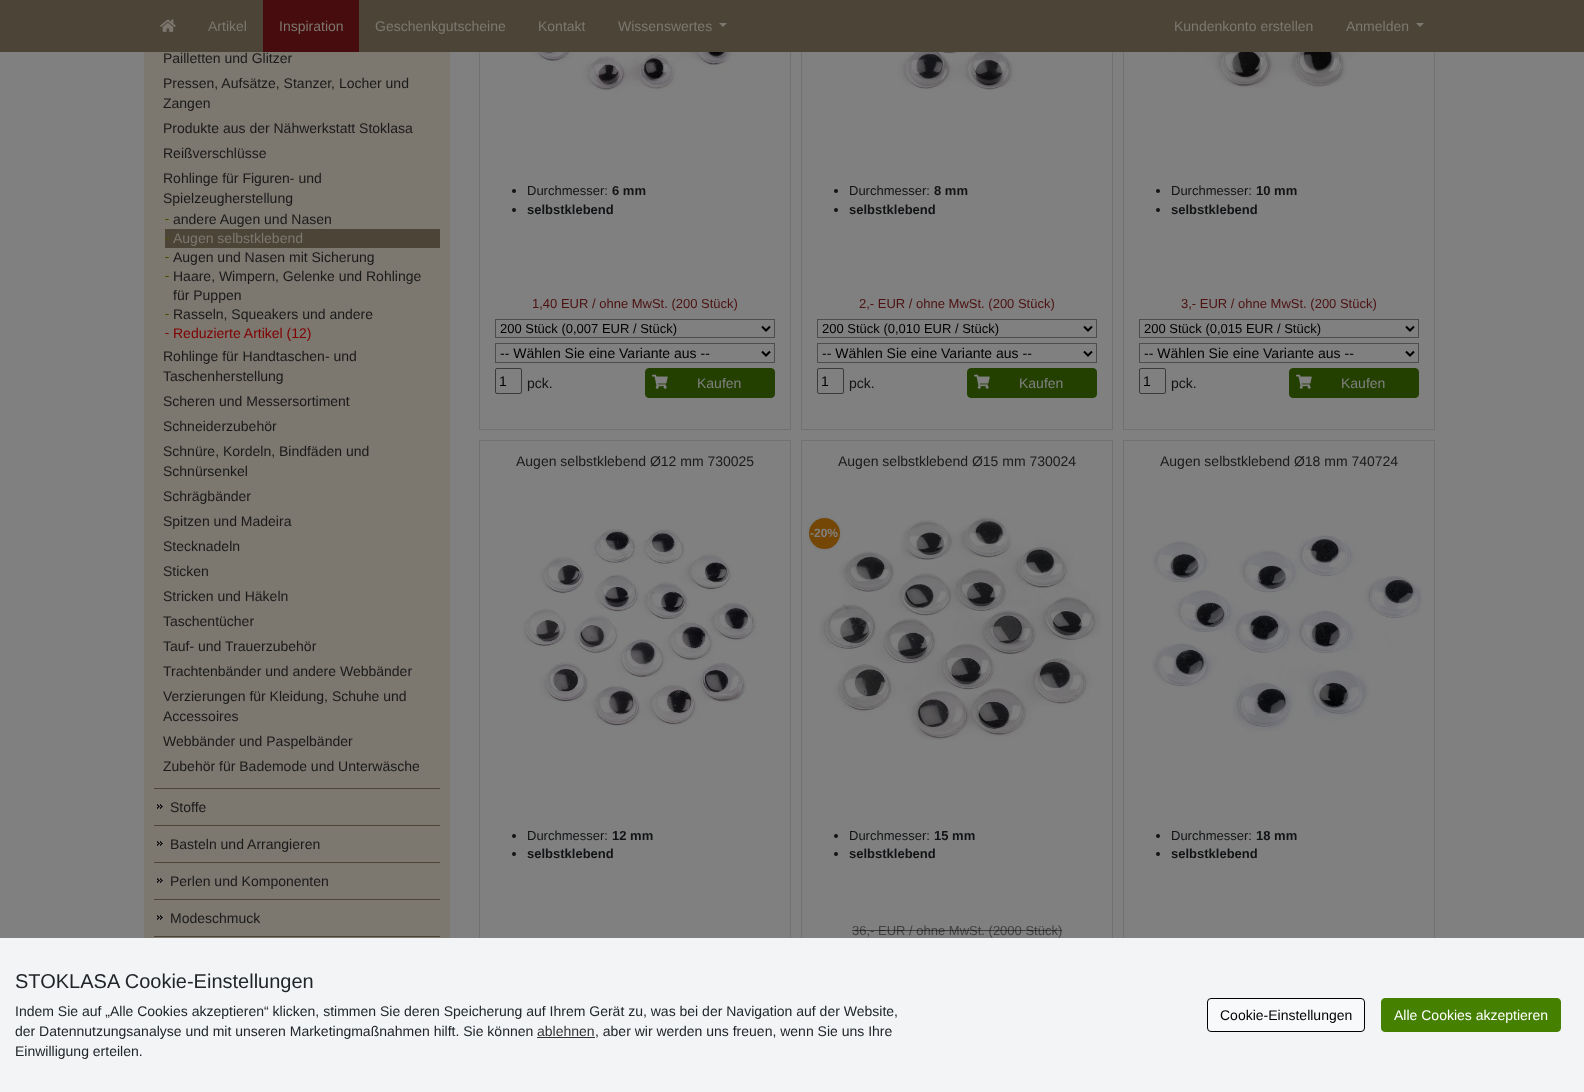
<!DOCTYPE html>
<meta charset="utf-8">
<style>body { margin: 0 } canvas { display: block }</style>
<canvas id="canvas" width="1584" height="1092"></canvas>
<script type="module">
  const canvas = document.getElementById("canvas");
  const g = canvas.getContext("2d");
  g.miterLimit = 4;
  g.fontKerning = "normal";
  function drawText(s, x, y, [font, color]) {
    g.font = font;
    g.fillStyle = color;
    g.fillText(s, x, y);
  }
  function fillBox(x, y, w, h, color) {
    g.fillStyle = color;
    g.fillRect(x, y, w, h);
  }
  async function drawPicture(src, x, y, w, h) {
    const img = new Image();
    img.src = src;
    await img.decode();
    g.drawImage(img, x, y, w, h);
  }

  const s1 = ["14px Liberation Sans", "#7C776F"];
  const s2 = ["14px Liberation Sans", "#1A1A1A"];
  const s3 = ["14px Liberation Sans", "#800000"];
  const s4 = ["13px Liberation Sans", "#111315"];
  const s5 = ["bold 13px Liberation Sans", "#111315"];
  const s6 = ["13px Liberation Sans", "#4D1111"];
  const s7 = ["13px Liberation Sans", "#000000"];
  const s8 = ["14px Liberation Sans", "#000000"];
  const s9 = ["14px Liberation Sans", "#111315"];
  const s10 = ["14px Liberation Sans", "#808080"];
  const s11 = ["bold 12px Liberation Sans", "#808080"];
  const s12 = ["13px Liberation Sans", "#404040"];
  const s13 = ["20px Liberation Sans", "#212529"];
  const s14 = ["14px Liberation Sans", "#212529"];
  const s15 = ["14px Liberation Sans", "#333333"];
  const s16 = ["14px Liberation Sans", "#FFFFFF"];

  fillBox(0, 0, 1584, 1092, "#808080");
  g.strokeStyle = "#6F7173";
  g.strokeRect(479.5, -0.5, 311, 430);
  g.strokeRect(801.5, -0.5, 311, 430);
  g.strokeRect(1123.5, -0.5, 311, 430);
  fillBox(0, 0, 1584, 52, "#4D4438");
  await drawPicture("pic1.png", 160, 19, 16, 13);
  drawText("Artikel", 208, 31, s1);
  fillBox(263, 0, 96, 52, "#470C0D");
  drawText("Inspiration", 279, 31, s1);
  drawText("Geschenkgutscheine", 375, 31, s1);
  drawText("Kontakt", 538, 31, s1);
  drawText("Wissenswertes", 618, 31, s1);
  g.beginPath();
  g.moveTo(719, 23);
  g.lineTo(727, 23);
  g.lineTo(723, 27);
  g.closePath();
  g.fill();
  drawText("Kundenkonto erstellen", 1174, 31, s1);
  drawText("Anmelden", 1346, 31, s1);
  g.beginPath();
  g.moveTo(1416, 23);
  g.lineTo(1424, 23);
  g.lineTo(1420, 27);
  g.closePath();
  g.fill();
  fillBox(144, 52, 306, 886, "#7C776F");
  drawText("Pailletten und Glitzer", 163, 63, s2);
  drawText("Pressen, Aufsätze, Stanzer, Locher und", 163, 88, s2);
  drawText("Zangen", 163, 108, s2);
  drawText("Produkte aus der Nähwerkstatt Stoklasa", 163, 133, s2);
  drawText("Reißverschlüsse", 163, 158, s2);
  drawText("Rohlinge für Figuren- und", 163, 183, s2);
  drawText("Spielzeugherstellung", 163, 203, s2);
  await drawPicture("pic2.png", 165, 219, 4, 1);
  drawText("andere Augen und Nasen", 173, 224, s2);
  fillBox(165, 229, 275, 19, "#4D4438");
  await drawPicture("pic2.png", 165, 238, 4, 1);
  drawText("Augen selbstklebend", 173, 243, s1);
  await drawPicture("pic2.png", 165, 257, 4, 1);
  drawText("Augen und Nasen mit Sicherung", 173, 262, s2);
  await drawPicture("pic2.png", 165, 276, 4, 1);
  drawText("Haare, Wimpern, Gelenke und Rohlinge", 173, 281, s2);
  drawText("für Puppen", 173, 300, s2);
  await drawPicture("pic2.png", 165, 314, 4, 1);
  drawText("Rasseln, Squeakers und andere", 173, 319, s2);
  await drawPicture("pic3.png", 165, 333, 4, 1);
  drawText("Reduzierte Artikel (12)", 173, 338, s3);
  drawText("Rohlinge für Handtaschen- und", 163, 361, s2);
  drawText("Taschenherstellung", 163, 381, s2);
  drawText("Scheren und Messersortiment", 163, 406, s2);
  drawText("Schneiderzubehör", 163, 431, s2);
  drawText("Schnüre, Kordeln, Bindfäden und", 163, 456, s2);
  drawText("Schnürsenkel", 163, 476, s2);
  drawText("Schrägbänder", 163, 501, s2);
  drawText("Spitzen und Madeira", 163, 526, s2);
  drawText("Stecknadeln", 163, 551, s2);
  drawText("Sticken", 163, 576, s2);
  drawText("Stricken und Häkeln", 163, 601, s2);
  drawText("Taschentücher", 163, 626, s2);
  drawText("Tauf- und Trauerzubehör", 163, 651, s2);
  drawText("Trachtenbänder und andere Webbänder", 163, 676, s2);
  drawText("Verzierungen für Kleidung, Schuhe und", 163, 701, s2);
  drawText("Accessoires", 163, 721, s2);
  drawText("Webbänder und Paspelbänder", 163, 746, s2);
  drawText("Zubehör für Bademode und Unterwäsche", 163, 771, s2);
  await drawPicture("pic4.png", 157, 804, 6, 5);
  fillBox(154, 788, 286, 1, "#4D4438");
  drawText("Stoffe", 170, 812, s2);
  await drawPicture("pic4.png", 157, 841, 6, 5);
  fillBox(154, 825, 286, 1, "#4D4438");
  drawText("Basteln und Arrangieren", 170, 849, s2);
  await drawPicture("pic4.png", 157, 878, 6, 5);
  fillBox(154, 862, 286, 1, "#4D4438");
  drawText("Perlen und Komponenten", 170, 886, s2);
  await drawPicture("pic4.png", 157, 915, 6, 5);
  fillBox(154, 899, 286, 1, "#4D4438");
  drawText("Modeschmuck", 170, 923, s2);
  fillBox(154, 936, 286, 1, "#4D4438");
  await drawPicture("pic5.png", 512, 52, 237, 39);
  g.fillStyle = "#111315";
  g.beginPath();
  g.arc(514, 191, 2, 0, Math.PI * 2);
  g.fill();
  drawText("Durchmesser:", 527, 195, s4);
  drawText("6 mm", 612, 195, s5);
  g.beginPath();
  g.arc(514, 210, 2, 0, Math.PI * 2);
  g.fill();
  drawText("selbstklebend", 527, 214, s5);
  drawText("1,40 EUR / ohne MwSt. (200 Stück)", 532, 308, s6);
  g.strokeStyle = "#4D4D4D";
  g.strokeRect(495.5, 319.5, 279, 18);
  g.beginPath();
  g.moveTo(762, 326.5);
  g.lineTo(766, 330.5);
  g.lineTo(770, 326.5);
  g.strokeStyle = "#000000";
  g.lineWidth = 2;
  g.stroke();
  drawText("200 Stück (0,007 EUR / Stück)", 500, 333, s7);
  g.strokeStyle = "#4D4D4D";
  g.lineWidth = 1;
  g.strokeRect(495.5, 343.5, 279, 19);
  g.beginPath();
  g.moveTo(762, 351.5);
  g.lineTo(766, 355.5);
  g.lineTo(770, 351.5);
  g.strokeStyle = "#000000";
  g.lineWidth = 2;
  g.stroke();
  drawText("-- Wählen Sie eine Variante aus --", 500, 358, s8);
  g.beginPath();
  g.roundRect(495.5, 368.5, 26, 25, 1.5);
  g.strokeStyle = "#3B3B3B";
  g.lineWidth = 1;
  g.stroke();
  drawText("1", 499, 386, s8);
  drawText("pck.", 527, 388, s9);
  g.fillStyle = "#234000";
  g.beginPath();
  g.roundRect(645.5, 368.5, 129, 29, 3.5);
  g.fill();
  g.strokeStyle = "#234000";
  g.stroke();
  await drawPicture("pic6.png", 652, 374, 16, 15);
  drawText("Kaufen", 697, 388, s10);
  await drawPicture("pic7.png", 851, 52, 213, 38);
  g.fillStyle = "#111315";
  g.beginPath();
  g.arc(836, 191, 2, 0, Math.PI * 2);
  g.fill();
  drawText("Durchmesser:", 849, 195, s4);
  drawText("8 mm", 934, 195, s5);
  g.beginPath();
  g.arc(836, 210, 2, 0, Math.PI * 2);
  g.fill();
  drawText("selbstklebend", 849, 214, s5);
  drawText("2,- EUR / ohne MwSt. (200 Stück)", 859, 308, s6);
  g.strokeStyle = "#4D4D4D";
  g.strokeRect(817.5, 319.5, 279, 18);
  g.beginPath();
  g.moveTo(1084, 326.5);
  g.lineTo(1088, 330.5);
  g.lineTo(1092, 326.5);
  g.strokeStyle = "#000000";
  g.lineWidth = 2;
  g.stroke();
  drawText("200 Stück (0,010 EUR / Stück)", 822, 333, s7);
  g.strokeStyle = "#4D4D4D";
  g.lineWidth = 1;
  g.strokeRect(817.5, 343.5, 279, 19);
  g.beginPath();
  g.moveTo(1084, 351.5);
  g.lineTo(1088, 355.5);
  g.lineTo(1092, 351.5);
  g.strokeStyle = "#000000";
  g.lineWidth = 2;
  g.stroke();
  drawText("-- Wählen Sie eine Variante aus --", 822, 358, s8);
  g.beginPath();
  g.roundRect(817.5, 368.5, 26, 25, 1.5);
  g.strokeStyle = "#3B3B3B";
  g.lineWidth = 1;
  g.stroke();
  drawText("1", 821, 386, s8);
  drawText("pck.", 849, 388, s9);
  g.fillStyle = "#234000";
  g.beginPath();
  g.roundRect(967.5, 368.5, 129, 29, 3.5);
  g.fill();
  g.strokeStyle = "#234000";
  g.stroke();
  await drawPicture("pic6.png", 974, 374, 16, 15);
  drawText("Kaufen", 1019, 388, s10);
  await drawPicture("pic8.png", 1158, 52, 240, 36);
  g.fillStyle = "#111315";
  g.beginPath();
  g.arc(1158, 191, 2, 0, Math.PI * 2);
  g.fill();
  drawText("Durchmesser:", 1171, 195, s4);
  drawText("10 mm", 1256, 195, s5);
  g.beginPath();
  g.arc(1158, 210, 2, 0, Math.PI * 2);
  g.fill();
  drawText("selbstklebend", 1171, 214, s5);
  drawText("3,- EUR / ohne MwSt. (200 Stück)", 1181, 308, s6);
  g.strokeStyle = "#4D4D4D";
  g.strokeRect(1139.5, 319.5, 279, 18);
  g.beginPath();
  g.moveTo(1406, 326.5);
  g.lineTo(1410, 330.5);
  g.lineTo(1414, 326.5);
  g.strokeStyle = "#000000";
  g.lineWidth = 2;
  g.stroke();
  drawText("200 Stück (0,015 EUR / Stück)", 1144, 333, s7);
  g.strokeStyle = "#4D4D4D";
  g.lineWidth = 1;
  g.strokeRect(1139.5, 343.5, 279, 19);
  g.beginPath();
  g.moveTo(1406, 351.5);
  g.lineTo(1410, 355.5);
  g.lineTo(1414, 351.5);
  g.strokeStyle = "#000000";
  g.lineWidth = 2;
  g.stroke();
  drawText("-- Wählen Sie eine Variante aus --", 1144, 358, s8);
  g.beginPath();
  g.roundRect(1139.5, 368.5, 26, 25, 1.5);
  g.strokeStyle = "#3B3B3B";
  g.lineWidth = 1;
  g.stroke();
  drawText("1", 1143, 386, s8);
  drawText("pck.", 1171, 388, s9);
  g.fillStyle = "#234000";
  g.beginPath();
  g.roundRect(1289.5, 368.5, 129, 29, 3.5);
  g.fill();
  g.strokeStyle = "#234000";
  g.stroke();
  await drawPicture("pic6.png", 1296, 374, 16, 15);
  drawText("Kaufen", 1341, 388, s10);
  g.strokeStyle = "#6F7173";
  g.strokeRect(479.5, 440.5, 311, 633);
  drawText("Augen selbstklebend Ø12 mm 730025", 516, 466, s2);
  await drawPicture("pic9.png", 523, 529, 234, 197);
  g.fillStyle = "#111315";
  g.beginPath();
  g.arc(514, 836, 2, 0, Math.PI * 2);
  g.fill();
  drawText("Durchmesser:", 527, 840, s4);
  drawText("12 mm", 612, 840, s5);
  g.beginPath();
  g.arc(514, 854, 2, 0, Math.PI * 2);
  g.fill();
  drawText("selbstklebend", 527, 858, s5);
  g.strokeRect(801.5, 440.5, 311, 633);
  drawText("Augen selbstklebend Ø15 mm 730024", 838, 466, s2);
  await drawPicture("pic10.png", 819, 516, 282, 224);
  g.fillStyle = "#744706";
  g.beginPath();
  g.arc(824.5, 533.5, 16.5, 0, Math.PI * 2);
  g.fill();
  g.strokeStyle = "#7C7D7D";
  g.lineWidth = 2;
  g.stroke();
  drawText("-20%", 810, 537, s11);
  g.fillStyle = "#111315";
  g.beginPath();
  g.arc(836, 836, 2, 0, Math.PI * 2);
  g.fill();
  drawText("Durchmesser:", 849, 840, s4);
  drawText("15 mm", 934, 840, s5);
  g.beginPath();
  g.arc(836, 854, 2, 0, Math.PI * 2);
  g.fill();
  drawText("selbstklebend", 849, 858, s5);
  drawText("36,- EUR / ohne MwSt. (2000 Stück)", 852, 935, s12);
  fillBox(852, 930, 53, 1, "rgba(0, 0, 0, 0.5)");
  fillBox(905, 930, 157, 1, "rgba(0, 0, 0, 0.5)");
  g.strokeStyle = "#6F7173";
  g.lineWidth = 1;
  g.strokeRect(1123.5, 440.5, 311, 633);
  drawText("Augen selbstklebend Ø18 mm 740724", 1160, 466, s2);
  await drawPicture("pic11.png", 1152, 535, 270, 197);
  g.fillStyle = "#111315";
  g.beginPath();
  g.arc(1158, 836, 2, 0, Math.PI * 2);
  g.fill();
  drawText("Durchmesser:", 1171, 840, s4);
  drawText("18 mm", 1256, 840, s5);
  g.beginPath();
  g.arc(1158, 854, 2, 0, Math.PI * 2);
  g.fill();
  drawText("selbstklebend", 1171, 858, s5);
  fillBox(0, 938, 1584, 154, "#F2F4F6");
  drawText("STOKLASA Cookie-Einstellungen", 15, 988, s13);
  drawText("Indem Sie auf „Alle Cookies akzeptieren“ klicken, stimmen Sie deren Speicherung auf Ihrem Gerät zu, was bei der Navigation auf der Website,", 15, 1016, s14);
  drawText("der Datennutzungsanalyse und mit unseren Marketingmaßnahmen hilft. Sie können", 15, 1036, s14);
  drawText("ablehnen", 537, 1036, s15);
  fillBox(537, 1037, 58, 1, "#333333");
  drawText(", aber wir werden uns freuen, wenn Sie uns Ihre", 595, 1036, s14);
  drawText("Einwilligung erteilen.", 15, 1056, s14);
  g.fillStyle = "#F8F9FA";
  g.beginPath();
  g.roundRect(1207.5, 998.5, 157, 33, 3.5);
  g.fill();
  g.strokeStyle = "#000000";
  g.stroke();
  drawText("Cookie-Einstellungen", 1220, 1020, s8);
  g.fillStyle = "#458000";
  g.beginPath();
  g.roundRect(1381.5, 998.5, 179, 33, 3.5);
  g.fill();
  g.strokeStyle = "#458000";
  g.stroke();
  drawText("Alle Cookies akzeptieren", 1394, 1020, s16);
</script>
